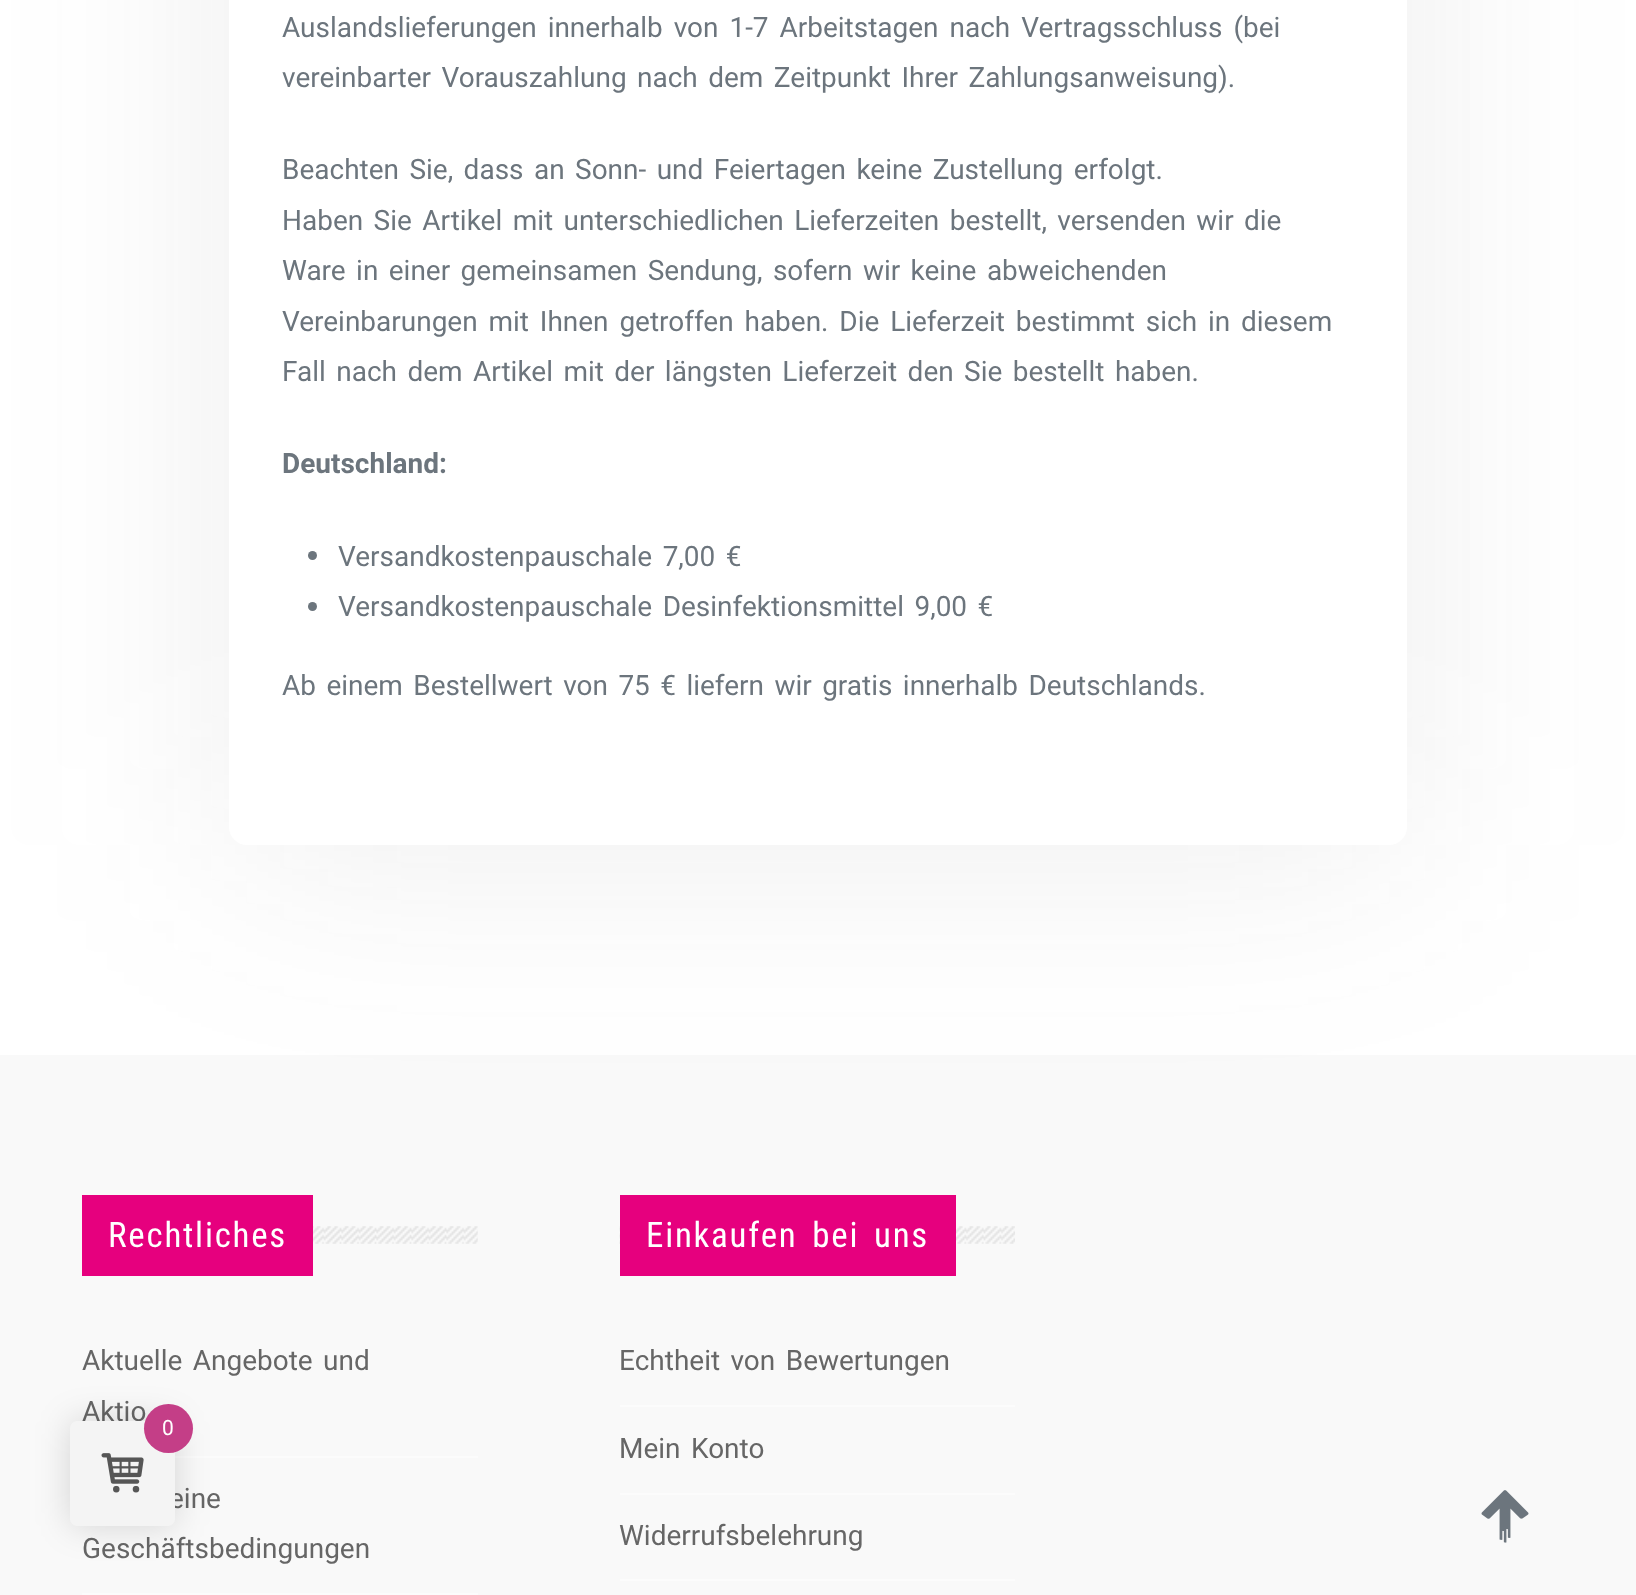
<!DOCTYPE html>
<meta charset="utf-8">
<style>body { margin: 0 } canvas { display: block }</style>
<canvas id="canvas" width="1636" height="1595"></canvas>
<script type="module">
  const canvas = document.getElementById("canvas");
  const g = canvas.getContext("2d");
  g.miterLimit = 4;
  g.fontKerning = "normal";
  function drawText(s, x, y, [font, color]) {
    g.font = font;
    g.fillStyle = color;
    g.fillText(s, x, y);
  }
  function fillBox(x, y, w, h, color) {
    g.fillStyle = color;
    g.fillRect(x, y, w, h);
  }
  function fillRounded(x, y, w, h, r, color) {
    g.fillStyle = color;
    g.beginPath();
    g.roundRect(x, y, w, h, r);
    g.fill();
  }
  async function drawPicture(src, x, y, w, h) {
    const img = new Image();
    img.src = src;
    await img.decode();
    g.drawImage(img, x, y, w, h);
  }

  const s1 = ["28px Roboto", "#6C757D"];
  const s2 = ["bold 28px Roboto", "#6C757D"];
  const s3 = ["35px Roboto Condensed", "#FFFFFF"];
  const s4 = ["28px Roboto", "#666666"];
  const s5 = ["21px Roboto", "#FFFFFF"];

  fillBox(0, 0, 1636, 1595, "#FFFFFF");
  fillBox(0, 1055, 1636, 540, "#F9F9F9");
  g.fillStyle = "rgba(74, 74, 74, 0.1)";
  g.filter = "blur(114.5px)";
  g.beginPath();
  g.roundRect(229, -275, 1178, 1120, 18);
  g.fill();
  g.filter = "none";
  fillRounded(229, -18, 1178, 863, 18, "#FFFFFF");
  g.wordSpacing = "4px";
  drawText("Auslandslieferungen innerhalb von 1-7 Arbeitstagen nach Vertragsschluss (bei", 282, 37, s1);
  g.wordSpacing = "3.5px";
  drawText("vereinbarter Vorauszahlung nach dem Zeitpunkt Ihrer Zahlungsanweisung).", 282, 87, s1);
  drawText("Beachten Sie, dass an Sonn- und Feiertagen keine Zustellung erfolgt.", 282, 179, s1);
  drawText("Haben Sie Artikel mit unterschiedlichen Lieferzeiten bestellt, versenden wir die", 282, 230, s1);
  drawText("Ware in einer gemeinsamen Sendung, sofern wir keine abweichenden", 282, 280, s1);
  g.wordSpacing = "3.9px";
  drawText("Vereinbarungen mit Ihnen getroffen haben. Die Lieferzeit bestimmt sich in diesem", 282, 331, s1);
  g.wordSpacing = "3.5px";
  drawText("Fall nach dem Artikel mit der längsten Lieferzeit den Sie bestellt haben.", 282, 381, s1);
  g.wordSpacing = "0px";
  drawText("Deutschland:", 282, 473, s2);
  g.beginPath();
  g.arc(312.5, 555.5, 4.5, 0, Math.PI * 2);
  g.fill();
  g.wordSpacing = "3.5px";
  drawText("Versandkostenpauschale 7,00 €", 338, 566, s1);
  g.beginPath();
  g.arc(312.5, 606.5, 4.5, 0, Math.PI * 2);
  g.fill();
  drawText("Versandkostenpauschale Desinfektionsmittel 9,00 €", 338, 616, s1);
  drawText("Ab einem Bestellwert von 75 € liefern wir gratis innerhalb Deutschlands.", 282, 695, s1);
  await drawPicture("pic1.png", 313, 1226, 165, 18);
  fillBox(82, 1195, 231, 81, "#E6007E");
  g.letterSpacing = "1.75px";
  g.wordSpacing = "0px";
  drawText("Rechtliches", 108, 1247, s3);
  fillBox(175, 1456, 303, 2, "#FCFCFC");
  g.letterSpacing = "0px";
  g.wordSpacing = "3.5px";
  drawText("Aktuelle Angebote und", 82, 1370, s4);
  g.wordSpacing = "0px";
  drawText("Aktio", 82, 1421, s4);
  fillBox(82, 1593, 396, 2, "#FCFCFC");
  drawText("eine", 169, 1508, s4);
  drawText("Geschäftsbedingungen", 82, 1558, s4);
  await drawPicture("pic2.png", 619, 1226, 396, 18);
  fillBox(620, 1195, 336, 81, "#E6007E");
  g.letterSpacing = "1.75px";
  g.wordSpacing = "5px";
  drawText("Einkaufen bei uns", 646, 1247, s3);
  fillBox(620, 1405, 395, 2, "#FCFCFC");
  g.letterSpacing = "0px";
  g.wordSpacing = "3.5px";
  drawText("Echtheit von Bewertungen", 619, 1370, s4);
  fillBox(620, 1493, 395, 2, "#FCFCFC");
  drawText("Mein Konto", 619, 1458, s4);
  fillBox(620, 1579, 395, 2, "#FCFCFC");
  g.wordSpacing = "0px";
  drawText("Widerrufsbelehrung", 619, 1545, s4);
  await drawPicture("pic3.png", 1481, 1490, 48, 53);
  g.fillStyle = "rgba(0, 0, 0, 0.15)";
  g.filter = "blur(17.5px)";
  g.beginPath();
  g.roundRect(70, 1421, 105, 105, 7);
  g.fill();
  g.filter = "none";
  fillRounded(70, 1421, 105, 105, 7, "#F4F4F4");
  g.fillStyle = "#C43E87";
  g.beginPath();
  g.arc(168.5, 1428.5, 24.5, 0, Math.PI * 2);
  g.fill();
  drawText("0", 162, 1435, s5);
  await drawPicture("pic4.png", 101, 1453, 43, 40);
</script>
